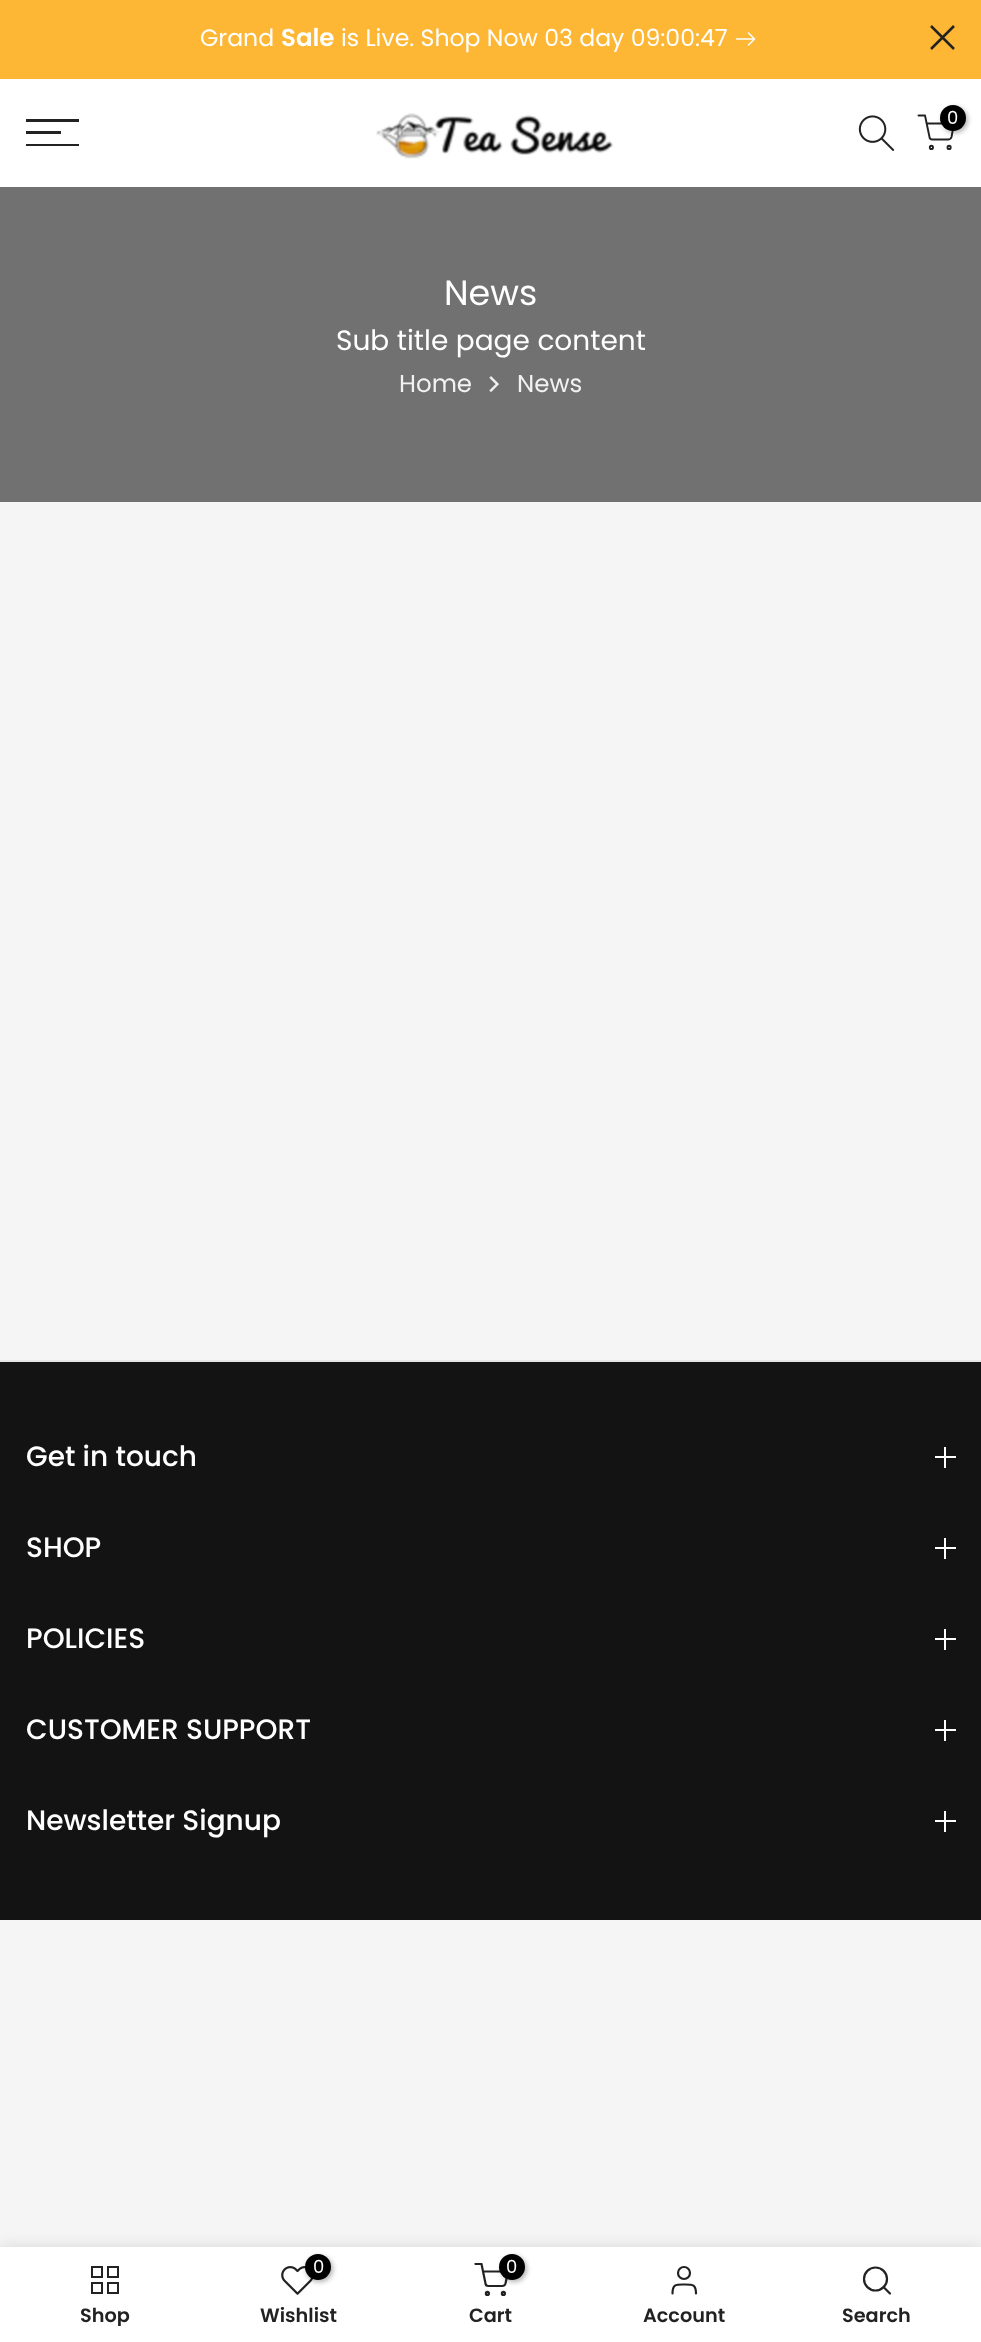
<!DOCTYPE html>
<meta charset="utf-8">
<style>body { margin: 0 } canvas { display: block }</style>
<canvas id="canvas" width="981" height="2342"></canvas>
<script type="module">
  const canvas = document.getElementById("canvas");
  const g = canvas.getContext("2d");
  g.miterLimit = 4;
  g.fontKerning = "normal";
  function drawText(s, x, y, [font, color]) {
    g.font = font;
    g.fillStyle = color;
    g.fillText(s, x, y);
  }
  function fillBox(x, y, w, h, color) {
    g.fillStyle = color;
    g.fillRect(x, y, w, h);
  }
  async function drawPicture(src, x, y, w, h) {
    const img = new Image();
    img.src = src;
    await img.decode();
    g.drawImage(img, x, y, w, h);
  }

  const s1 = ["23.6px Poppins", "#FFFFFF"];
  const s2 = ["600 24.5px Poppins", "#FFFFFF"];
  const s3 = ["18px Poppins", "#FFFFFF"];
  const s4 = ["35px Poppins", "#FFFFFF"];
  const s5 = ["28px Poppins", "#FFFFFF"];
  const s6 = ["24.5px Poppins", "#F2F2F2"];
  const s7 = ["500 28px Poppins", "#FFFFFF"];
  const s8 = ["600 19.25px Poppins", "#222222"];

  fillBox(0, 0, 981, 2342, "#F5F5F5");
  fillBox(0, 0, 981, 79, "#FDB734");
  drawText("Grand", 200, 46, s1);
  drawText("Sale", 281, 46, s2);
  drawText("is Live. Shop Now 03 day 09:00:47", 341, 46, s1);
  await drawPicture("pic1.png", 735, 32, 21, 14);
  g.beginPath();
  g.moveTo(954, 26);
  g.lineTo(931, 49);
  g.moveTo(954, 49);
  g.lineTo(931, 26);
  g.strokeStyle = "#222222";
  g.lineWidth = 2.5;
  g.stroke();
  fillBox(0, 79, 981, 108, "#FFFFFF");
  fillBox(26, 119, 53, 3, "#222222");
  fillBox(26, 131, 35, 3, "#222222");
  fillBox(26, 144, 53, 2, "#222222");
  await drawPicture("pic2.png", 376, 113, 238, 46);
  await drawPicture("pic3.png", 858, 115, 37, 36);
  g.beginPath();
  g.moveTo(918.5, 115.5);
  g.lineTo(925, 115.5);
  g.lineTo(929.5, 137);
  g.bezierCurveTo(929.5, 138.5, 931, 139.5, 932.5, 139.5);
  g.lineTo(948, 139.5);
  g.bezierCurveTo(949.5, 139.5, 951, 138.5, 951.5, 137);
  g.lineTo(954, 123.5);
  g.lineTo(926.5, 123.5);
  g.lineWidth = 1.9;
  g.lineCap = "round";
  g.lineJoin = "round";
  g.stroke();
  g.fillStyle = "rgba(0, 0, 0, 0.3)";
  g.filter = "blur(2.5px)";
  g.beginPath();
  g.roundRect(942, 107, 26, 26, 13);
  g.fill();
  g.filter = "none";
  g.fillStyle = "#000000";
  g.beginPath();
  g.arc(953, 118, 13, 0, Math.PI * 2);
  g.fill();
  drawText("0", 947, 124, s3);
  g.beginPath();
  g.arc(931.4, 147.4, 1.6, 0, Math.PI * 2);
  g.stroke();
  g.beginPath();
  g.arc(949.1, 147.4, 1.6, 0, Math.PI * 2);
  g.stroke();
  fillBox(0, 187, 981, 315, "#717171");
  drawText("News", 444, 305, s4);
  drawText("Sub title page content", 336, 350, s5);
  drawText("Home", 399, 392, s6);
  await drawPicture("pic4.png", 489, 376, 10, 16);
  drawText("News", 517, 392, s6);
  fillBox(0, 1362, 981, 558, "#131313");
  fillBox(0, 1360, 981, 2, "#E6E6E6");
  drawText("Get in touch", 26, 1466, s7);
  fillBox(944, 1447, 2, 21, "#FFFFFF");
  fillBox(935, 1456, 21, 2, "#FFFFFF");
  drawText("SHOP", 26, 1557, s7);
  fillBox(944, 1538, 2, 21, "#FFFFFF");
  fillBox(935, 1547, 21, 2, "#FFFFFF");
  drawText("POLICIES", 26, 1648, s7);
  fillBox(944, 1629, 2, 21, "#FFFFFF");
  fillBox(935, 1638, 21, 2, "#FFFFFF");
  drawText("CUSTOMER SUPPORT", 26, 1739, s7);
  fillBox(944, 1720, 2, 21, "#FFFFFF");
  fillBox(935, 1729, 21, 2, "#FFFFFF");
  drawText("Newsletter Signup", 26, 1830, s7);
  fillBox(944, 1811, 2, 21, "#FFFFFF");
  fillBox(935, 1820, 21, 2, "#FFFFFF");
  g.fillStyle = "rgba(0, 0, 0, 0.12)";
  g.filter = "blur(8px)";
  g.beginPath();
  g.rect(0, 2247, 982, 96);
  g.fill();
  g.filter = "none";
  fillBox(0, 2247, 981, 95, "#FFFFFF");
  g.lineWidth = 2;
  g.lineJoin = "miter";
  g.strokeRect(92, 2267, 10, 10);
  g.strokeRect(108, 2267, 10, 10);
  g.strokeRect(92, 2283, 10, 10);
  g.strokeRect(108, 2283, 10, 10);
  g.save();
  g.beginPath();
  g.rect(26, 2307, 158, 19);
  g.clip();
  drawText("Shop", 80, 2322, s8);
  g.restore();
  await drawPicture("pic5.png", 281, 2266, 32, 29);
  g.fillStyle = "rgba(0, 0, 0, 0.3)";
  g.filter = "blur(2.5px)";
  g.beginPath();
  g.roundRect(306, 2256, 27, 26, 13);
  g.fill();
  g.filter = "none";
  g.fillStyle = "#000000";
  g.beginPath();
  g.arc(318, 2267, 13, 0, Math.PI * 2);
  g.fill();
  drawText("0", 313, 2273, s3);
  drawText("Wishlist", 260, 2322, s8);
  g.save();
  g.beginPath();
  g.rect(474, 2263, 35, 35);
  g.clip();
  g.beginPath();
  g.moveTo(475.5, 2264);
  g.lineTo(481.5, 2264);
  g.lineTo(485.5, 2283.5);
  g.bezierCurveTo(485.5, 2285, 487, 2286, 488.5, 2286);
  g.lineTo(502.5, 2286);
  g.bezierCurveTo(504, 2286, 505, 2285, 505.5, 2283.5);
  g.lineTo(508, 2271.5);
  g.lineTo(483, 2271.5);
  g.lineWidth = 2.2;
  g.lineJoin = "round";
  g.stroke();
  g.restore();
  g.beginPath();
  g.arc(503.4, 2293.4, 1.5, 0, Math.PI * 2);
  g.lineWidth = 2.2;
  g.stroke();
  g.fillStyle = "rgba(0, 0, 0, 0.3)";
  g.filter = "blur(2.5px)";
  g.beginPath();
  g.roundRect(501, 2256, 26, 26, 13);
  g.fill();
  g.filter = "none";
  g.fillStyle = "#000000";
  g.beginPath();
  g.arc(512, 2267, 13, 0, Math.PI * 2);
  g.fill();
  drawText("0", 506, 2273, s3);
  g.beginPath();
  g.arc(487.4, 2293.4, 1.5, 0, Math.PI * 2);
  g.stroke();
  drawText("Cart", 469, 2322, s8);
  g.beginPath();
  g.arc(684, 2273, 6, 0, Math.PI * 2);
  g.stroke();
  g.beginPath();
  g.moveTo(696, 2293.5);
  g.bezierCurveTo(696, 2284, 692.5, 2284.5, 684, 2284.5);
  g.bezierCurveTo(676, 2284.5, 672.5, 2284, 672.5, 2293.5);
  g.lineJoin = "round";
  g.stroke();
  drawText("Account", 643, 2322, s8);
  g.beginPath();
  g.arc(875.5, 2279, 11.5, 0, Math.PI * 2);
  g.stroke();
  g.beginPath();
  g.moveTo(890, 2293.5);
  g.lineTo(883.5, 2287);
  g.stroke();
  drawText("Search", 842, 2322, s8);
</script>
